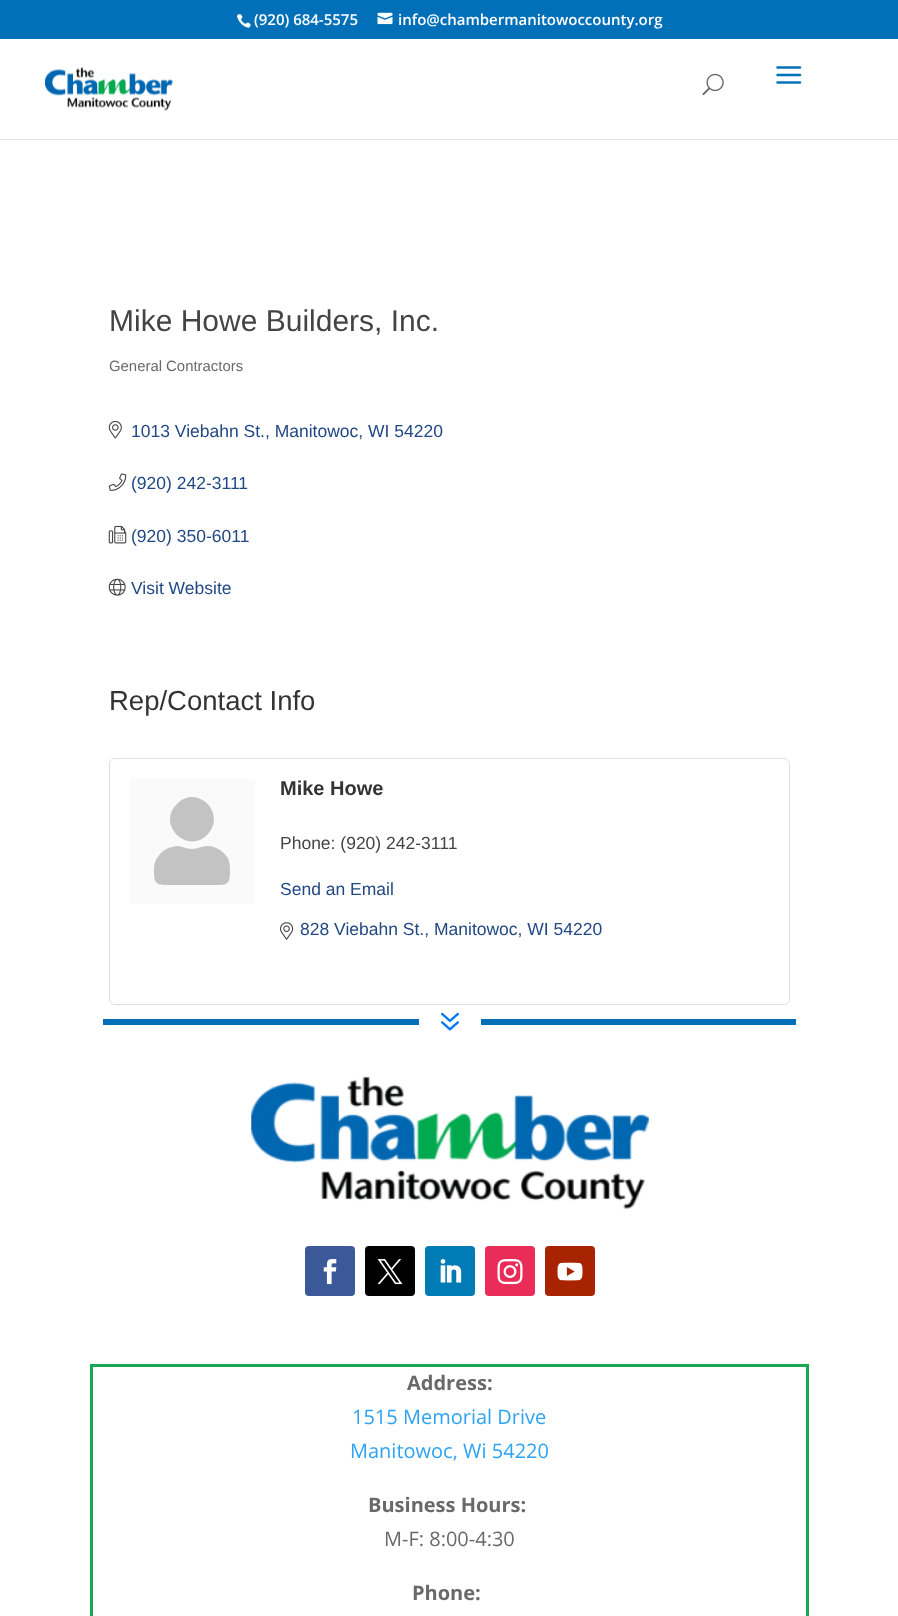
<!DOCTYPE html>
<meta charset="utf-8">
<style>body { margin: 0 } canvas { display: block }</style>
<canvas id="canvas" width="898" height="1616"></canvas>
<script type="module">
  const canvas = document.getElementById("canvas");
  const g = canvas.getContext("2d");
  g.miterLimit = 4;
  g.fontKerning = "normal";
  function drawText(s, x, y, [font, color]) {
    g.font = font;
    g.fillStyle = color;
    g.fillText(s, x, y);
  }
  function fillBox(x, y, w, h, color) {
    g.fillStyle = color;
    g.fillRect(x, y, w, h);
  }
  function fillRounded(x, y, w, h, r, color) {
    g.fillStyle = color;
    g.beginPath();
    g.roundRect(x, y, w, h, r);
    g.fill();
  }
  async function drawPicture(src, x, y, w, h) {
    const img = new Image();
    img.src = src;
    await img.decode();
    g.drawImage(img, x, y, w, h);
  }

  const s1 = ["600 15px Open Sans", "#FFFFFF"];
  const s2 = ["30px Liberation Sans", "#444444"];
  const s3 = ["14.9px Liberation Sans", "#696969"];
  const s4 = ["17.5px Liberation Sans", "#224884"];
  const s5 = ["27.5px Liberation Sans", "#333333"];
  const s6 = ["bold 20px Liberation Sans", "#333333"];
  const s7 = ["17.5px Liberation Sans", "#444444"];
  const s8 = ["bold 20px Open Sans", "#696969"];
  const s9 = ["20px Open Sans", "#2EA3F2"];
  const s10 = ["20px Open Sans", "#696969"];

  fillBox(0, 0, 898, 1616, "#FFFFFF");
  fillBox(0, 0, 898, 39, "#0170B9");
  await drawPicture("pic1.png", 236, 14, 15, 14);
  drawText("(920) 684-5575", 254, 25, s1);
  await drawPicture("pic2.png", 377, 12, 16, 13);
  drawText("info@chambermanitowoccounty.org", 398, 25, s1);
  g.fillStyle = "#E6E6E6";
  g.beginPath();
  g.moveTo(0, 139);
  g.lineTo(0, 140);
  g.lineTo(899, 140);
  g.lineTo(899, 40);
  g.lineTo(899, 139);
  g.closePath();
  g.fill();
  await drawPicture("pic3.png", 45, 67, 128, 44);
  await drawPicture("pic4.png", 702, 73, 22, 23);
  await drawPicture("pic5.png", 776, 66, 26, 18);
  drawText("Mike Howe Builders, Inc.", 109, 331, s2);
  drawText("General Contractors", 109, 371, s3);
  await drawPicture("pic6.png", 108, 420, 14, 19);
  drawText("1013 Viebahn St., Manitowoc, WI 54220", 131, 437, s4);
  await drawPicture("pic7.png", 108, 473, 19, 18);
  drawText("(920) 242-3111", 131, 489, s4);
  await drawPicture("pic8.png", 108, 525, 19, 19);
  drawText("(920) 350-6011", 131, 542, s4);
  await drawPicture("pic9.png", 108, 578, 18, 18);
  drawText("Visit Website", 131, 594, s4);
  drawText("Rep/Contact Info", 109, 710, s5);
  g.beginPath();
  g.roundRect(109.5, 758.5, 680, 246, 5.5);
  g.strokeStyle = "#DFDFDF";
  g.stroke();
  fillBox(130, 779, 125, 125, "#FAFAFA");
  g.fillStyle = "#C3C3C3";
  g.beginPath();
  g.moveTo(207, 835);
  g.bezierCurveTo(187, 855, 156, 824, 177, 804);
  g.bezierCurveTo(197, 783, 228, 814, 207, 835);
  g.closePath();
  g.moveTo(207, 846);
  g.bezierCurveTo(215, 846, 222, 850, 227, 857);
  g.bezierCurveTo(230, 861, 230, 867, 230, 872);
  g.bezierCurveTo(230, 886, 225, 885, 212, 885);
  g.lineTo(172, 885);
  g.bezierCurveTo(159, 885, 154, 886, 154, 872);
  g.bezierCurveTo(154, 867, 154, 861, 158, 857);
  g.bezierCurveTo(162, 850, 169, 847, 177, 846);
  g.bezierCurveTo(182, 846, 186, 849, 192, 849);
  g.bezierCurveTo(197, 849, 202, 846, 207, 846);
  g.closePath();
  g.fill();
  drawText("Mike Howe", 280, 795, s6);
  drawText("Phone: (920) 242-3111", 280, 849, s7);
  drawText("Send an Email", 280, 895, s4);
  await drawPicture("pic10.png", 280, 922, 14, 18);
  drawText("828 Viebahn St., Manitowoc, WI 54220", 300, 935, s4);
  fillBox(103, 1019, 316, 6, "#0170B9");
  await drawPicture("pic11.png", 440, 1012, 19, 19);
  fillBox(481, 1019, 315, 6, "#0170B9");
  await drawPicture("pic12.png", 251, 1076, 398, 133);
  fillRounded(305, 1246, 50, 50, 4, "#3B5998");
  await drawPicture("pic13.png", 323, 1259, 14, 26);
  fillRounded(365, 1246, 50, 50, 4, "#000000");
  await drawPicture("pic14.png", 377, 1259, 26, 26);
  fillRounded(425, 1246, 50, 50, 4, "#007BB6");
  await drawPicture("pic15.png", 440, 1259, 22, 24);
  fillRounded(485, 1246, 50, 50, 4, "#EA2C59");
  await drawPicture("pic16.png", 497, 1259, 26, 26);
  fillRounded(545, 1246, 50, 50, 4, "#A82400");
  await drawPicture("pic17.png", 557, 1262, 26, 19);
  g.strokeStyle = "#18A752";
  g.lineWidth = 3;
  g.strokeRect(91.5, 1365.5, 716, 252);
  drawText("Address:", 407, 1390, s8);
  drawText("1515 Memorial Drive", 352, 1424, s9);
  drawText("Manitowoc, Wi 54220", 350, 1458, s9);
  drawText("Business Hours:", 368, 1512, s8);
  drawText("M-F: 8:00-4:30", 384, 1546, s10);
  drawText("Phone:", 412, 1600, s8);
</script>
